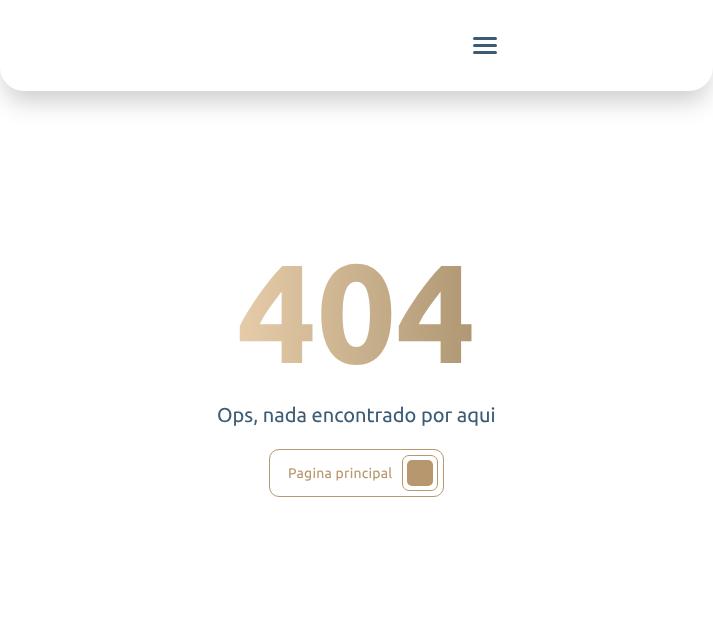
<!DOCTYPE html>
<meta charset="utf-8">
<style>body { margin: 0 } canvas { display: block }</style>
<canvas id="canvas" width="713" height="644"></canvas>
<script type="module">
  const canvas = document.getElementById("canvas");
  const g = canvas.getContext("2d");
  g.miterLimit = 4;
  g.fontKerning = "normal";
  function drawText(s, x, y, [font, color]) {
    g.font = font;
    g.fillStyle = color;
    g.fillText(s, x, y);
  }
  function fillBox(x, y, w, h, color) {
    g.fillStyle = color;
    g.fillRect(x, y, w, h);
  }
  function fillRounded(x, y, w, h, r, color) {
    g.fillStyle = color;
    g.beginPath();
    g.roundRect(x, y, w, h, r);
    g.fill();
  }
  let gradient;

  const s1 = ["20px Ubuntu", "#3C5C76"];
  const s2 = ["14px Ubuntu", "#B7976E"];

  fillBox(0, 0, 713, 644, "#FFFFFF");
  g.fillStyle = "rgba(0, 0, 0, 0.2)";
  g.filter = "blur(12px)";
  g.beginPath();
  g.roundRect(5, 20, 703, 81, 19);
  g.fill();
  g.filter = "none";
  g.fillStyle = "#FFFFFF";
  g.beginPath();
  g.roundRect(0, 0, 713, 91, [0, 0, 24, 24]);
  g.fill();
  fillRounded(473, 37, 24, 3, 1.5, "#3C5C76");
  fillRounded(473, 44, 24, 3, 1.5, "#3C5C76");
  fillRounded(473, 51, 24, 3, 1.5, "#3C5C76");
  g.font = "bold 140px Ubuntu";
  gradient = g.createLinearGradient(237, 311, 476, 311);
  gradient.addColorStop(0, "#E6CCA9");
  gradient.addColorStop(1, "#AF9773");
  g.fillStyle = gradient;
  g.fillText("404", 237, 363);
  drawText("Ops, nada encontrado por aqui", 217, 422, s1);
  g.beginPath();
  g.roundRect(269.5, 449.5, 174, 47, 9.5);
  g.strokeStyle = "#B7976E";
  g.stroke();
  g.letterSpacing = "0.25px";
  drawText("Pagina principal", 288, 478, s2);
  g.beginPath();
  g.roundRect(402.5, 455.5, 35, 35, 6.5);
  g.stroke();
  fillRounded(407, 460, 26, 26, 5, "#B7976E");
</script>
